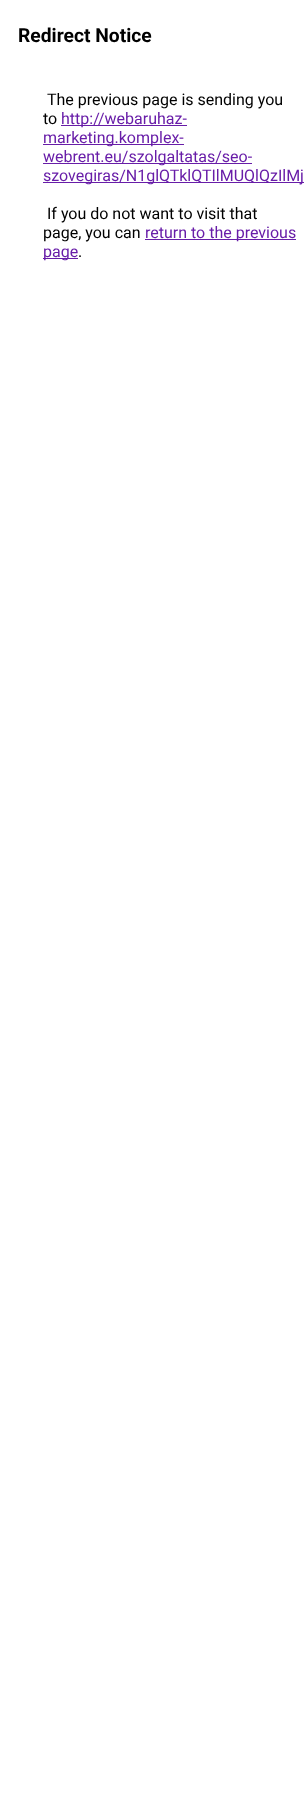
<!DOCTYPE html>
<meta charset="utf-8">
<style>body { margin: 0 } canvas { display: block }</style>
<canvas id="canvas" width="304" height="1802"></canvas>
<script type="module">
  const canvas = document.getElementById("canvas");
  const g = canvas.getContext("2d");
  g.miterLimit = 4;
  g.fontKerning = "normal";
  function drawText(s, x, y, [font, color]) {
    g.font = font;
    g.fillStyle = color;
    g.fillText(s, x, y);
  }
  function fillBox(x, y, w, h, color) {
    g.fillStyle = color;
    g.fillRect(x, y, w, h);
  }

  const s1 = ["bold 19.25px Roboto", "#000000"];
  const s2 = ["16px Roboto", "#000000"];
  const s3 = ["16px Roboto", "#681DA8"];

  fillBox(0, 0, 304, 1802, "#FFFFFF");
  drawText("Redirect Notice", 18, 42, s1);
  drawText("The previous page is sending you", 47, 105, s2);
  drawText("to", 43, 124, s2);
  fillBox(61, 125, 126, 1, "#681DA8");
  drawText("http://webaruhaz-", 61, 124, s3);
  fillBox(43, 144, 141, 1, "#681DA8");
  drawText("marketing.komplex-", 43, 143, s3);
  fillBox(43, 163, 209, 1, "#681DA8");
  drawText("webrent.eu/szolgaltatas/seo-", 43, 162, s3);
  fillBox(43, 182, 261, 1, "#681DA8");
  drawText("szovegiras/N1glQTklQTIlMUQlQzIlMj", 43, 181, s3);
  drawText("If you do not want to visit that", 47, 219, s2);
  drawText("page, you can", 43, 238, s2);
  fillBox(145, 239, 151, 1, "#681DA8");
  drawText("return to the previous", 145, 238, s3);
  fillBox(43, 258, 35, 1, "#681DA8");
  drawText("page", 43, 257, s3);
  drawText(".", 78, 257, s2);
</script>
